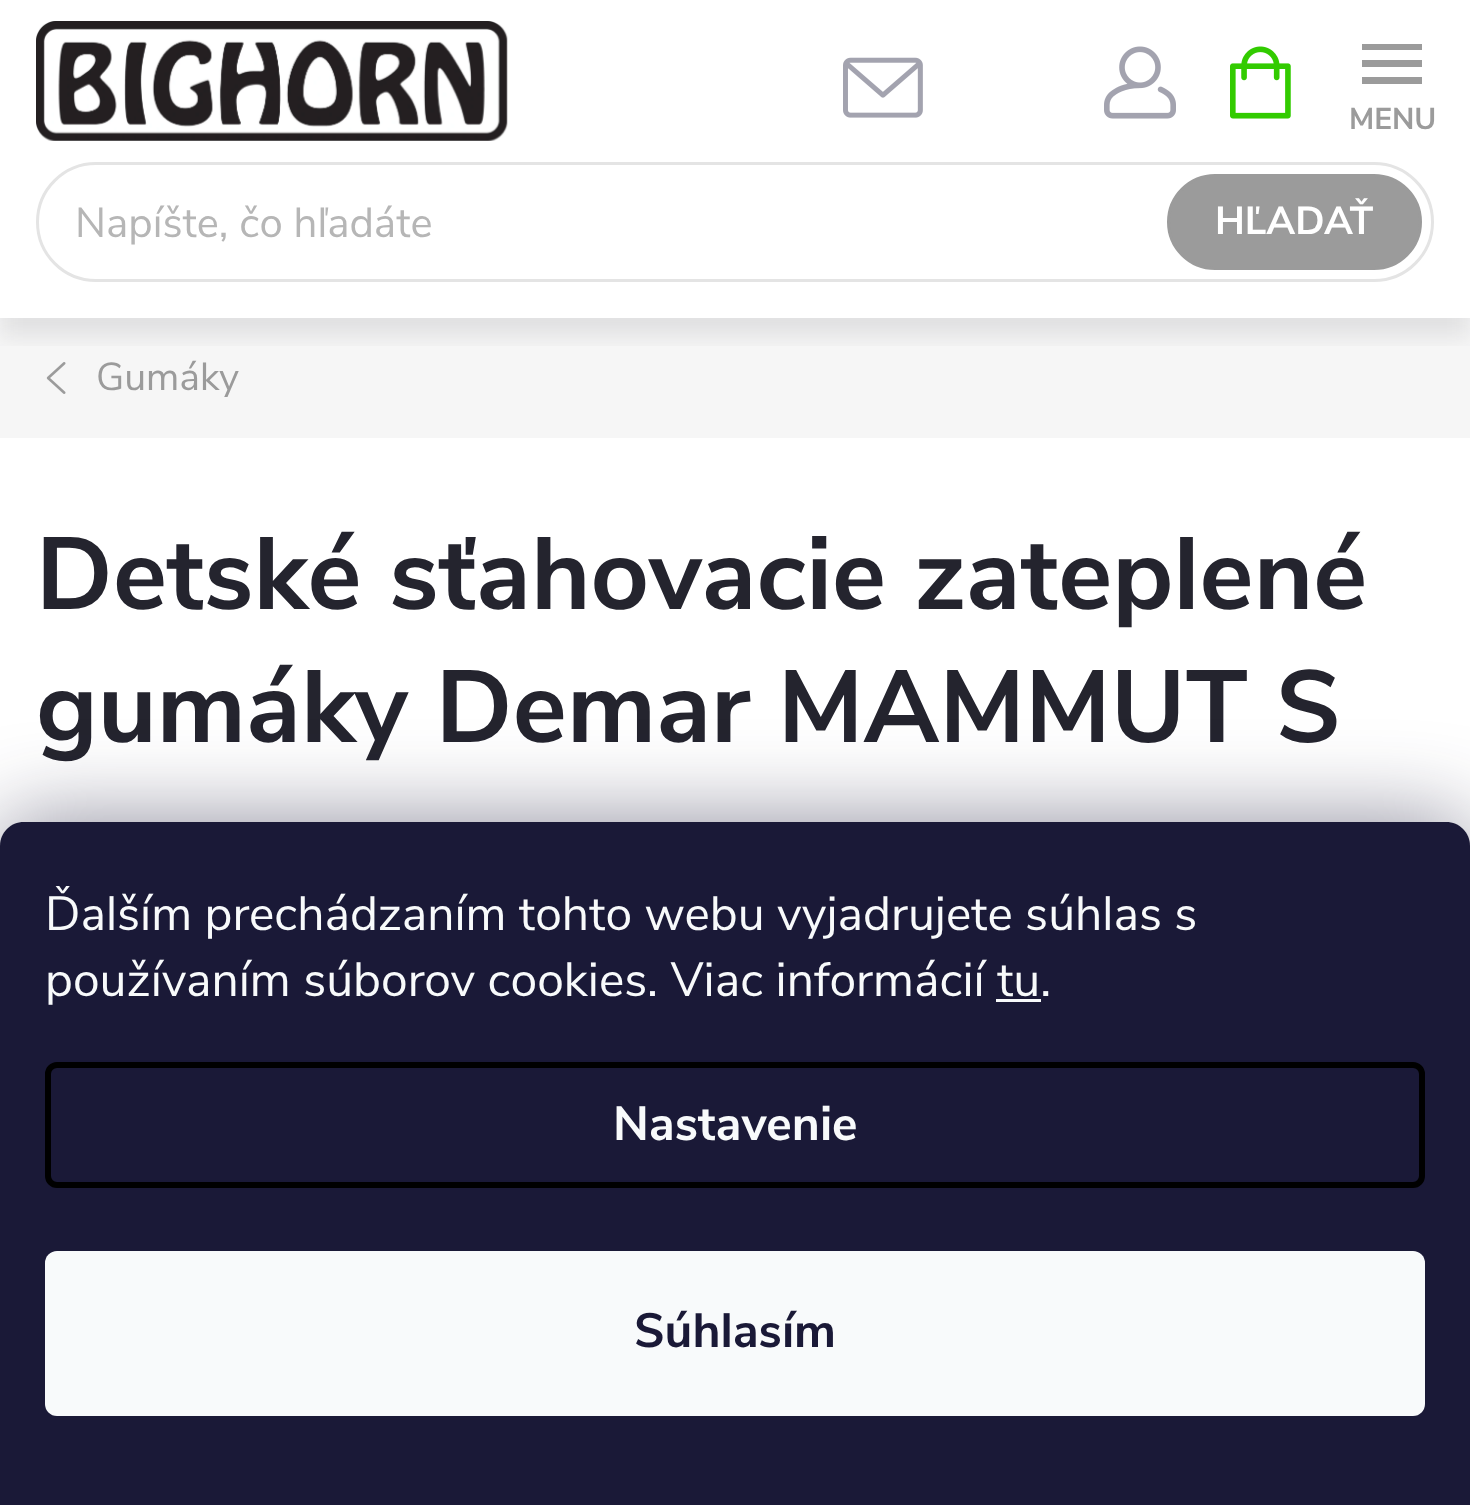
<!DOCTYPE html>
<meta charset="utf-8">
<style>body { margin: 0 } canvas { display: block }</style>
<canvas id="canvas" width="1470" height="1505"></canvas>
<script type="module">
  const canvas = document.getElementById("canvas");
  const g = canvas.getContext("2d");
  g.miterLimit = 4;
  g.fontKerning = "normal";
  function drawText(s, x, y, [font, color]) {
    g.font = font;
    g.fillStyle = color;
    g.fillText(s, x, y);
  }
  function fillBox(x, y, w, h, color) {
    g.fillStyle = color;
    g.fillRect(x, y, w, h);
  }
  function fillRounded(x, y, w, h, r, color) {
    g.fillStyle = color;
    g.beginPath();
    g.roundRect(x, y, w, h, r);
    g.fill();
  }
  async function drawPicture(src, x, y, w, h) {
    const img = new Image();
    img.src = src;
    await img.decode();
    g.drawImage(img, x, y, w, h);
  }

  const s1 = ["bold 30px Nunito Sans", "#9B9B9B"];
  const s2 = ["42px Nunito Sans", "#B6B6B6"];
  const s3 = ["bold 39px Nunito Sans", "#FFFFFF"];
  const s4 = ["39px Nunito Sans", "#9B9B9B"];
  const s5 = ["bold 102px Nunito Sans", "#24242E"];
  const s6 = ["48px Nunito Sans", "#F8FAFB"];
  const s7 = ["bold 48px Nunito Sans", "#F8FAFB"];
  const s8 = ["bold 48px Nunito Sans", "#1A1937"];

  fillBox(0, 0, 1470, 1505, "#FFFFFF");
  await drawPicture("pic1.png", 843, 57, 80, 61);
  await drawPicture("pic2.png", 1104, 46, 72, 73);
  g.fillStyle = "#9B9B9B";
  g.beginPath();
  g.moveTo(1362, 84);
  g.lineTo(1422, 84);
  g.lineTo(1422, 77);
  g.lineTo(1362, 77);
  g.closePath();
  g.moveTo(1362, 67);
  g.lineTo(1422, 67);
  g.lineTo(1422, 60);
  g.lineTo(1362, 60);
  g.closePath();
  g.moveTo(1362, 44);
  g.lineTo(1362, 50);
  g.lineTo(1422, 50);
  g.lineTo(1422, 44);
  g.closePath();
  g.fill();
  drawText("MENU", 1349, 129, s1);
  fillBox(0, 318, 1470, 120, "#F6F6F6");
  await drawPicture("pic5.png", 46, 362, 20, 32);
  g.save();
  g.beginPath();
  g.rect(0, 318, 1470, 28);
  g.clip();
  g.fillStyle = "rgba(36, 36, 46, 0.1)";
  g.filter = "blur(12px)";
  g.beginPath();
  g.rect(0, 180, 1470, 156);
  g.fill();
  g.filter = "none";
  g.restore();
  await drawPicture("pic3.png", 36, 21, 472, 120);
  await drawPicture("pic4.png", 1230, 46, 61, 73);
  g.beginPath();
  g.roundRect(37.5, 163.5, 1395, 117, 58.5);
  g.strokeStyle = "#E4E4E4";
  g.lineWidth = 3;
  g.stroke();
  drawText("Napíšte, čo hľadáte", 75, 237, s2);
  g.fillStyle = "#9B9B9B";
  g.beginPath();
  g.roundRect(1168.5, 175.5, 252, 93, 46.5);
  g.fill();
  g.strokeStyle = "#9B9B9B";
  g.stroke();
  drawText("HĽADAŤ", 1215, 234, s3);
  drawText("Gumáky", 96, 390, s4);
  drawText("Detské sťahovacie zateplené", 36, 609, s5);
  drawText("gumáky Demar MAMMUT S", 36, 742, s5);
  g.fillStyle = "rgba(27, 25, 57, 0.5)";
  g.filter = "blur(45px)";
  g.beginPath();
  g.roundRect(0, 822, 1470, 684, 24);
  g.fill();
  g.filter = "none";
  g.fillStyle = "#1A1937";
  g.beginPath();
  g.moveTo(24, 822);
  g.lineTo(1446, 822);
  g.bezierCurveTo(1459.5, 822, 1470, 832.5, 1470, 846);
  g.lineTo(1470, 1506);
  g.lineTo(0, 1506);
  g.lineTo(0, 846);
  g.bezierCurveTo(0, 832.5, 10.5, 822, 24, 822);
  g.closePath();
  g.fill();
  drawText("Ďalším prechádzaním tohto webu vyjadrujete súhlas s", 45, 930, s6);
  drawText("používaním súborov cookies. Viac informácií tu.", 45, 996, s6);
  fillBox(996, 999, 45, 3, "#F8FAFB");
  g.beginPath();
  g.roundRect(48, 1065, 1374, 120, 9);
  g.strokeStyle = "#000000";
  g.lineWidth = 6;
  g.stroke();
  drawText("Nastavenie", 613, 1140, s7);
  fillRounded(45, 1251, 1380, 165, 12, "#F8FAFB");
  drawText("Súhlasím", 634, 1347, s8);
</script>
